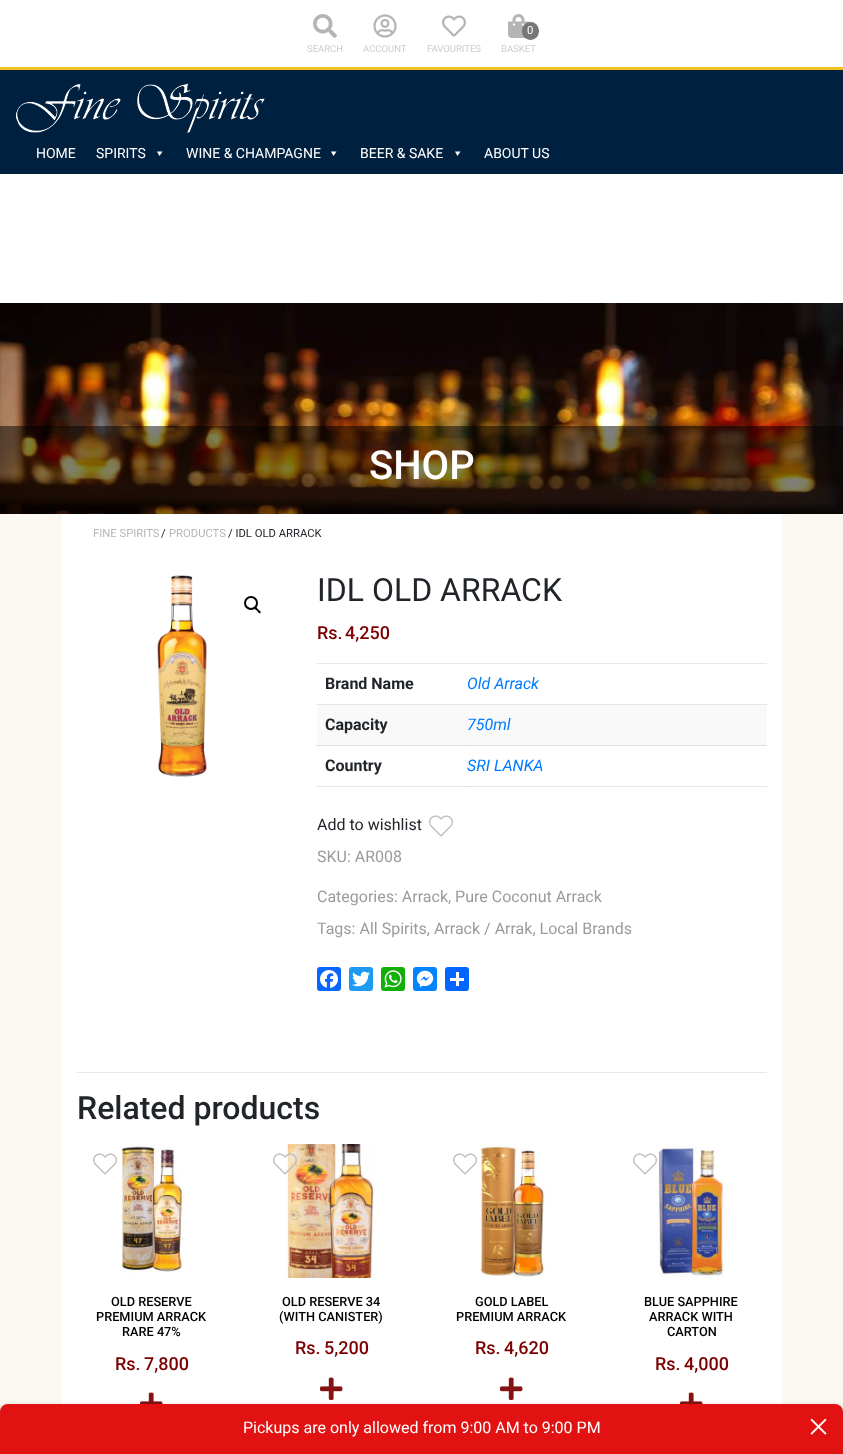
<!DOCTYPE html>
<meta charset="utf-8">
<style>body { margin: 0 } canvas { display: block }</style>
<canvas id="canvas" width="843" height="1454"></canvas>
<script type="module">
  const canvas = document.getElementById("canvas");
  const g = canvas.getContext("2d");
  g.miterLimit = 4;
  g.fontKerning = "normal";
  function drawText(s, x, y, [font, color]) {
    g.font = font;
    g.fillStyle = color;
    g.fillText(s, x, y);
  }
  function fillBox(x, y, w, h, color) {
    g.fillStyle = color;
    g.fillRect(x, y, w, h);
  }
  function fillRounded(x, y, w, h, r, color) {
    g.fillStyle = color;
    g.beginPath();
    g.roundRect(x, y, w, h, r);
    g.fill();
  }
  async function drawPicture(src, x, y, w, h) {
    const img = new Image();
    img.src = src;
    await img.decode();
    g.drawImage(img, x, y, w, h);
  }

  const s1 = ["9.5px Roboto", "#CCCCCC"];
  const s2 = ["11.25px Roboto", "#FFFFFF"];
  const s3 = ["14px Roboto", "#FFFFFF"];
  const s4 = ["500 40px Roboto", "#FFFFFF"];
  const s5 = ["11.25px Roboto", "#B5B5B5"];
  const s6 = ["11.25px Roboto", "#212529"];
  const s7 = ["32px Roboto", "#212529"];
  const s8 = ["500 18px Roboto", "#7D0000"];
  const s9 = ["bold 16px Roboto", "#212529"];
  const s10 = ["italic 16px Roboto", "#007BFF"];
  const s11 = ["16px Roboto", "#212529"];
  const s12 = ["16px Roboto", "#9B9B9B"];
  const s13 = ["500 32px Roboto", "#212529"];
  const s14 = ["500 12.75px Roboto", "#000000"];
  const s15 = ["16px Roboto", "#FFFFFF"];

  fillBox(0, 0, 843, 1454, "#FFFFFF");
  await drawPicture("pic1.png", 313, 14, 24, 24);
  drawText("SEARCH", 307, 52, s1);
  await drawPicture("pic2.png", 373, 14, 24, 24);
  drawText("ACCOUNT", 363, 52, s1);
  await drawPicture("pic3.png", 442, 15, 24, 22);
  drawText("FAVOURITES", 427, 52, s1);
  await drawPicture("pic4.png", 508, 14, 21, 24);
  fillRounded(522, 22, 17, 18, 8.5, "#777777");
  drawText("0", 527, 34, s2);
  drawText("BASKET", 501, 52, s1);
  fillBox(0, 70, 843, 104, "#002040");
  fillBox(0, 67, 843, 3, "#F2C023");
  await drawPicture("pic5.png", 16, 83, 249, 50);
  drawText("HOME", 36, 158, s3);
  drawText("SPIRITS", 96, 158, s3);
  g.beginPath();
  g.moveTo(162.5, 151.5);
  g.lineTo(159.5, 156);
  g.lineTo(157, 151.5);
  g.closePath();
  g.fill();
  drawText("WINE & CHAMPAGNE", 186, 158, s3);
  g.beginPath();
  g.moveTo(336.5, 151.5);
  g.lineTo(333.5, 156);
  g.lineTo(331, 151.5);
  g.closePath();
  g.fill();
  drawText("BEER & SAKE", 360, 158, s3);
  g.beginPath();
  g.moveTo(460.5, 151.5);
  g.lineTo(457.5, 156);
  g.lineTo(455, 151.5);
  g.closePath();
  g.fill();
  drawText("ABOUT US", 484, 158, s3);
  await drawPicture("pic6.png", 0, 303, 843, 211);
  fillBox(0, 426, 843, 88, "rgba(0, 0, 0, 0.5)");
  drawText("SHOP", 369, 479, s4);
  fillBox(0, 514, 843, 898, "#FBF8F2");
  fillBox(62, 514, 720, 890, "#FFFFFF");
  fillBox(316, 704, 451, 1, "#E6E6E6");
  fillBox(316, 745, 1, 1, "#E6E6E6");
  fillBox(316, 786, 451, 1, "#E6E6E6");
  drawText("FINE SPIRITS", 93, 537, s5);
  drawText("/", 161, 537, s6);
  drawText("PRODUCTS", 169, 537, s5);
  drawText("/ IDL OLD ARRACK", 228, 537, s6);
  await drawPicture("pic7.png", 157, 575, 50, 202);
  g.beginPath();
  g.arc(251, 603, 6, 0, Math.PI * 2);
  g.strokeStyle = "#000000";
  g.lineWidth = 2;
  g.stroke();
  g.fillStyle = "#000000";
  g.beginPath();
  g.moveTo(254.5, 607);
  g.bezierCurveTo(256, 606, 257.5, 608.5, 258, 609.5);
  g.bezierCurveTo(259, 610, 261.5, 611.5, 260.5, 613);
  g.bezierCurveTo(259, 614, 257.5, 611.5, 257, 610.5);
  g.bezierCurveTo(256, 610, 253.5, 608.5, 254.5, 607);
  g.closePath();
  g.fill();
  drawText("IDL OLD ARRACK", 317, 601, s7);
  drawText("Rs.", 317, 639, s8);
  drawText("4,250", 345, 639, s8);
  fillBox(317, 663, 450, 1, "#E6E6E6");
  drawText("Brand Name", 325, 689, s9);
  fillBox(466, 704, 1, 1, "#CFCFCF");
  drawText("Old Arrack", 467, 689, s10);
  fillBox(317, 705, 450, 40, "#F9F9F9");
  fillBox(317, 745, 450, 1, "#E0E0E0");
  drawText("Capacity", 325, 730, s9);
  fillBox(466, 745, 1, 1, "#CACACA");
  drawText("750ml", 467, 730, s10);
  drawText("Country", 325, 771, s9);
  fillBox(466, 786, 1, 1, "#CFCFCF");
  drawText("SRI LANKA", 467, 771, s10);
  drawText("Add to wishlist", 317, 830, s11);
  await drawPicture("pic8.png", 429, 815, 24, 22);
  drawText("SKU: AR008", 317, 862, s12);
  drawText("Categories: Arrack, Pure Coconut Arrack", 317, 902, s12);
  drawText("Tags: All Spirits, Arrack / Arrak, Local Brands", 317, 934, s12);
  fillRounded(317, 967, 24, 24, 3, "#0866FF");
  await drawPicture("pic9.png", 320, 970, 18, 18);
  fillRounded(349, 967, 24, 24, 3, "#1D9BF0");
  await drawPicture("pic10.png", 352, 971, 18, 16);
  fillRounded(381, 967, 24, 24, 3, "#12AF0A");
  await drawPicture("pic11.png", 384, 970, 18, 18);
  fillRounded(413, 967, 24, 24, 3, "#0084FF");
  await drawPicture("pic12.png", 416, 970, 18, 18);
  fillRounded(445, 967, 24, 24, 3, "#0166FF");
  fillBox(456, 972, 3, 14, "#FFFFFF");
  fillBox(450, 978, 14, 3, "#FFFFFF");
  fillBox(77, 1072, 690, 1, "#E6E6E6");
  drawText("Related products", 77, 1119, s13);
  await drawPicture("pic8.png", 93, 1153, 24, 22);
  await drawPicture("pic13.png", 121, 1144, 64, 129);
  drawText("OLD RESERVE", 111, 1306, s14);
  drawText("PREMIUM ARRACK", 96, 1321, s14);
  drawText("RARE 47%", 122, 1336, s14);
  drawText("Rs.", 115, 1370, s8);
  drawText("7,800", 144, 1370, s8);
  await drawPicture("pic14.png", 140, 1392, 23, 12);
  await drawPicture("pic16.png", 286, 1144, 89, 134);
  await drawPicture("pic15.png", 273, 1153, 24, 22);
  drawText("OLD RESERVE 34", 282, 1306, s14);
  drawText("(WITH CANISTER)", 279, 1321, s14);
  drawText("Rs.", 295, 1354, s8);
  drawText("5,200", 324, 1354, s8);
  await drawPicture("pic17.png", 320, 1377, 23, 23);
  await drawPicture("pic8.png", 453, 1153, 24, 22);
  await drawPicture("pic18.png", 480, 1144, 65, 134);
  drawText("GOLD LABEL", 475, 1306, s14);
  drawText("PREMIUM ARRACK", 456, 1321, s14);
  drawText("Rs.", 475, 1354, s8);
  drawText("4,620", 504, 1354, s8);
  await drawPicture("pic17.png", 500, 1377, 23, 23);
  await drawPicture("pic20.png", 656, 1144, 69, 134);
  await drawPicture("pic19.png", 633, 1153, 24, 22);
  drawText("BLUE SAPPHIRE", 644, 1306, s14);
  drawText("ARRACK WITH", 649, 1321, s14);
  drawText("CARTON", 667, 1336, s14);
  drawText("Rs.", 655, 1370, s8);
  drawText("4,000", 684, 1370, s8);
  await drawPicture("pic14.png", 680, 1392, 23, 12);
  g.fillStyle = "rgba(0, 0, 0, 0.3)";
  g.filter = "blur(2.5px)";
  g.beginPath();
  g.roundRect(0, 1406, 843, 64, 8);
  g.fill();
  g.filter = "none";
  fillRounded(0, 1404, 843, 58, 8, "#E21212");
  drawText("Pickups are only allowed from 9:00 AM to 9:00 PM", 243, 1433, s15);
  await drawPicture("pic21.png", 810, 1418, 17, 17);
</script>
